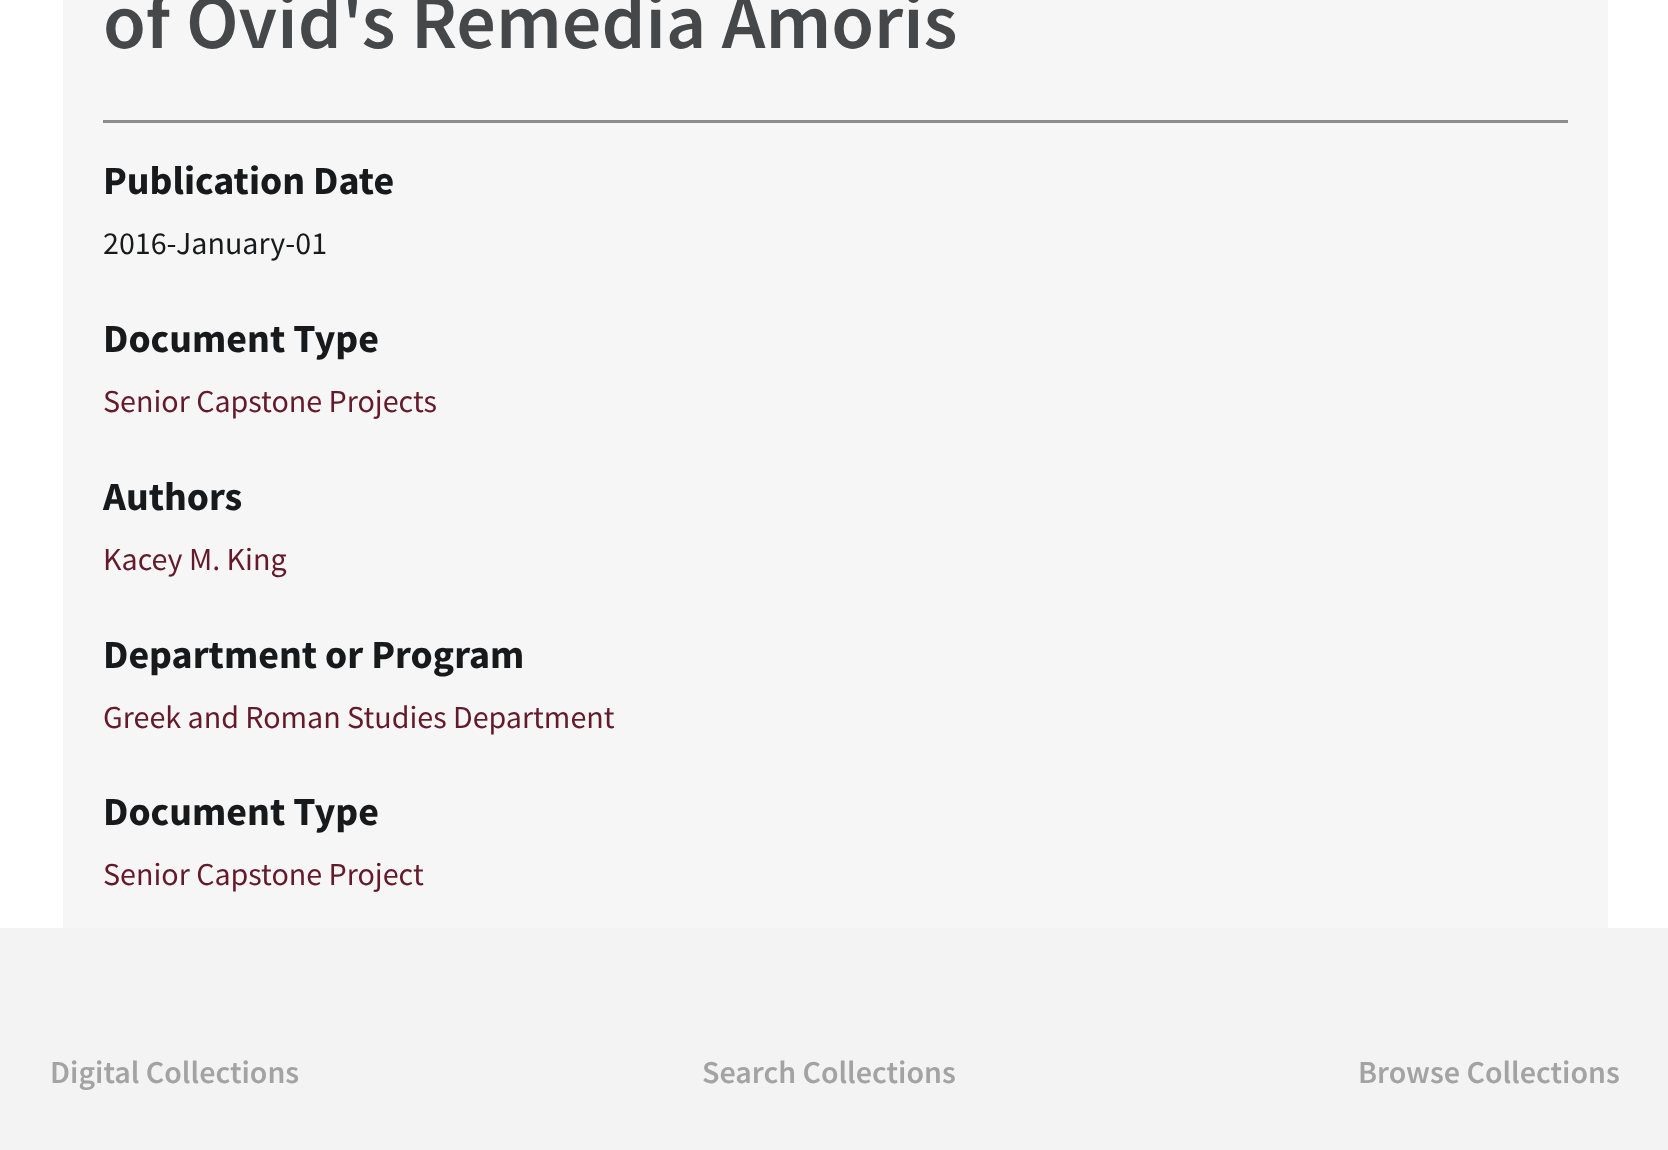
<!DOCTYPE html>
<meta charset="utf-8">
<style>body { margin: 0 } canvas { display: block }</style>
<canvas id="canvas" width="1668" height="1150"></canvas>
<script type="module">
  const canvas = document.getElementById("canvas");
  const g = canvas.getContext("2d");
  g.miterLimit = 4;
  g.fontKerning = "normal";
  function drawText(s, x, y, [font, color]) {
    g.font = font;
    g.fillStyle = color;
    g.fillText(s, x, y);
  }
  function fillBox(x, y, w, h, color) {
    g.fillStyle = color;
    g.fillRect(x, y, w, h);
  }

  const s1 = ["600 78.1px Source Sans Pro", "#464748"];
  const s2 = ["bold 40px Source Sans Pro", "#18191A"];
  const s3 = ["32px Source Sans Pro", "#18191A"];
  const s4 = ["32px Source Sans Pro", "#641A2B"];
  const s5 = ["600 32px Source Sans Pro", "#A3A3A3"];

  fillBox(0, 0, 1668, 1150, "#FFFFFF");
  fillBox(63, 0, 1545, 928, "#F6F6F6");
  fillBox(103, 120, 1465, 3, "#8C8C8D");
  drawText("of Ovid's Remedia Amoris", 103, 48, s1);
  drawText("Publication Date", 103, 194, s2);
  drawText("2016-January-01", 103, 254, s3);
  drawText("Document Type", 103, 352, s2);
  drawText("Senior Capstone Projects", 103, 412, s4);
  drawText("Authors", 103, 510, s2);
  drawText("Kacey M. King", 103, 570, s4);
  drawText("Department or Program", 103, 668, s2);
  drawText("Greek and Roman Studies Department", 103, 728, s4);
  drawText("Document Type", 103, 825, s2);
  drawText("Senior Capstone Project", 103, 885, s4);
  fillBox(0, 928, 1668, 222, "#F3F3F3");
  drawText("Digital Collections", 50, 1083, s5);
  drawText("Search Collections", 702, 1083, s5);
  drawText("Browse Collections", 1358, 1083, s5);
</script>
